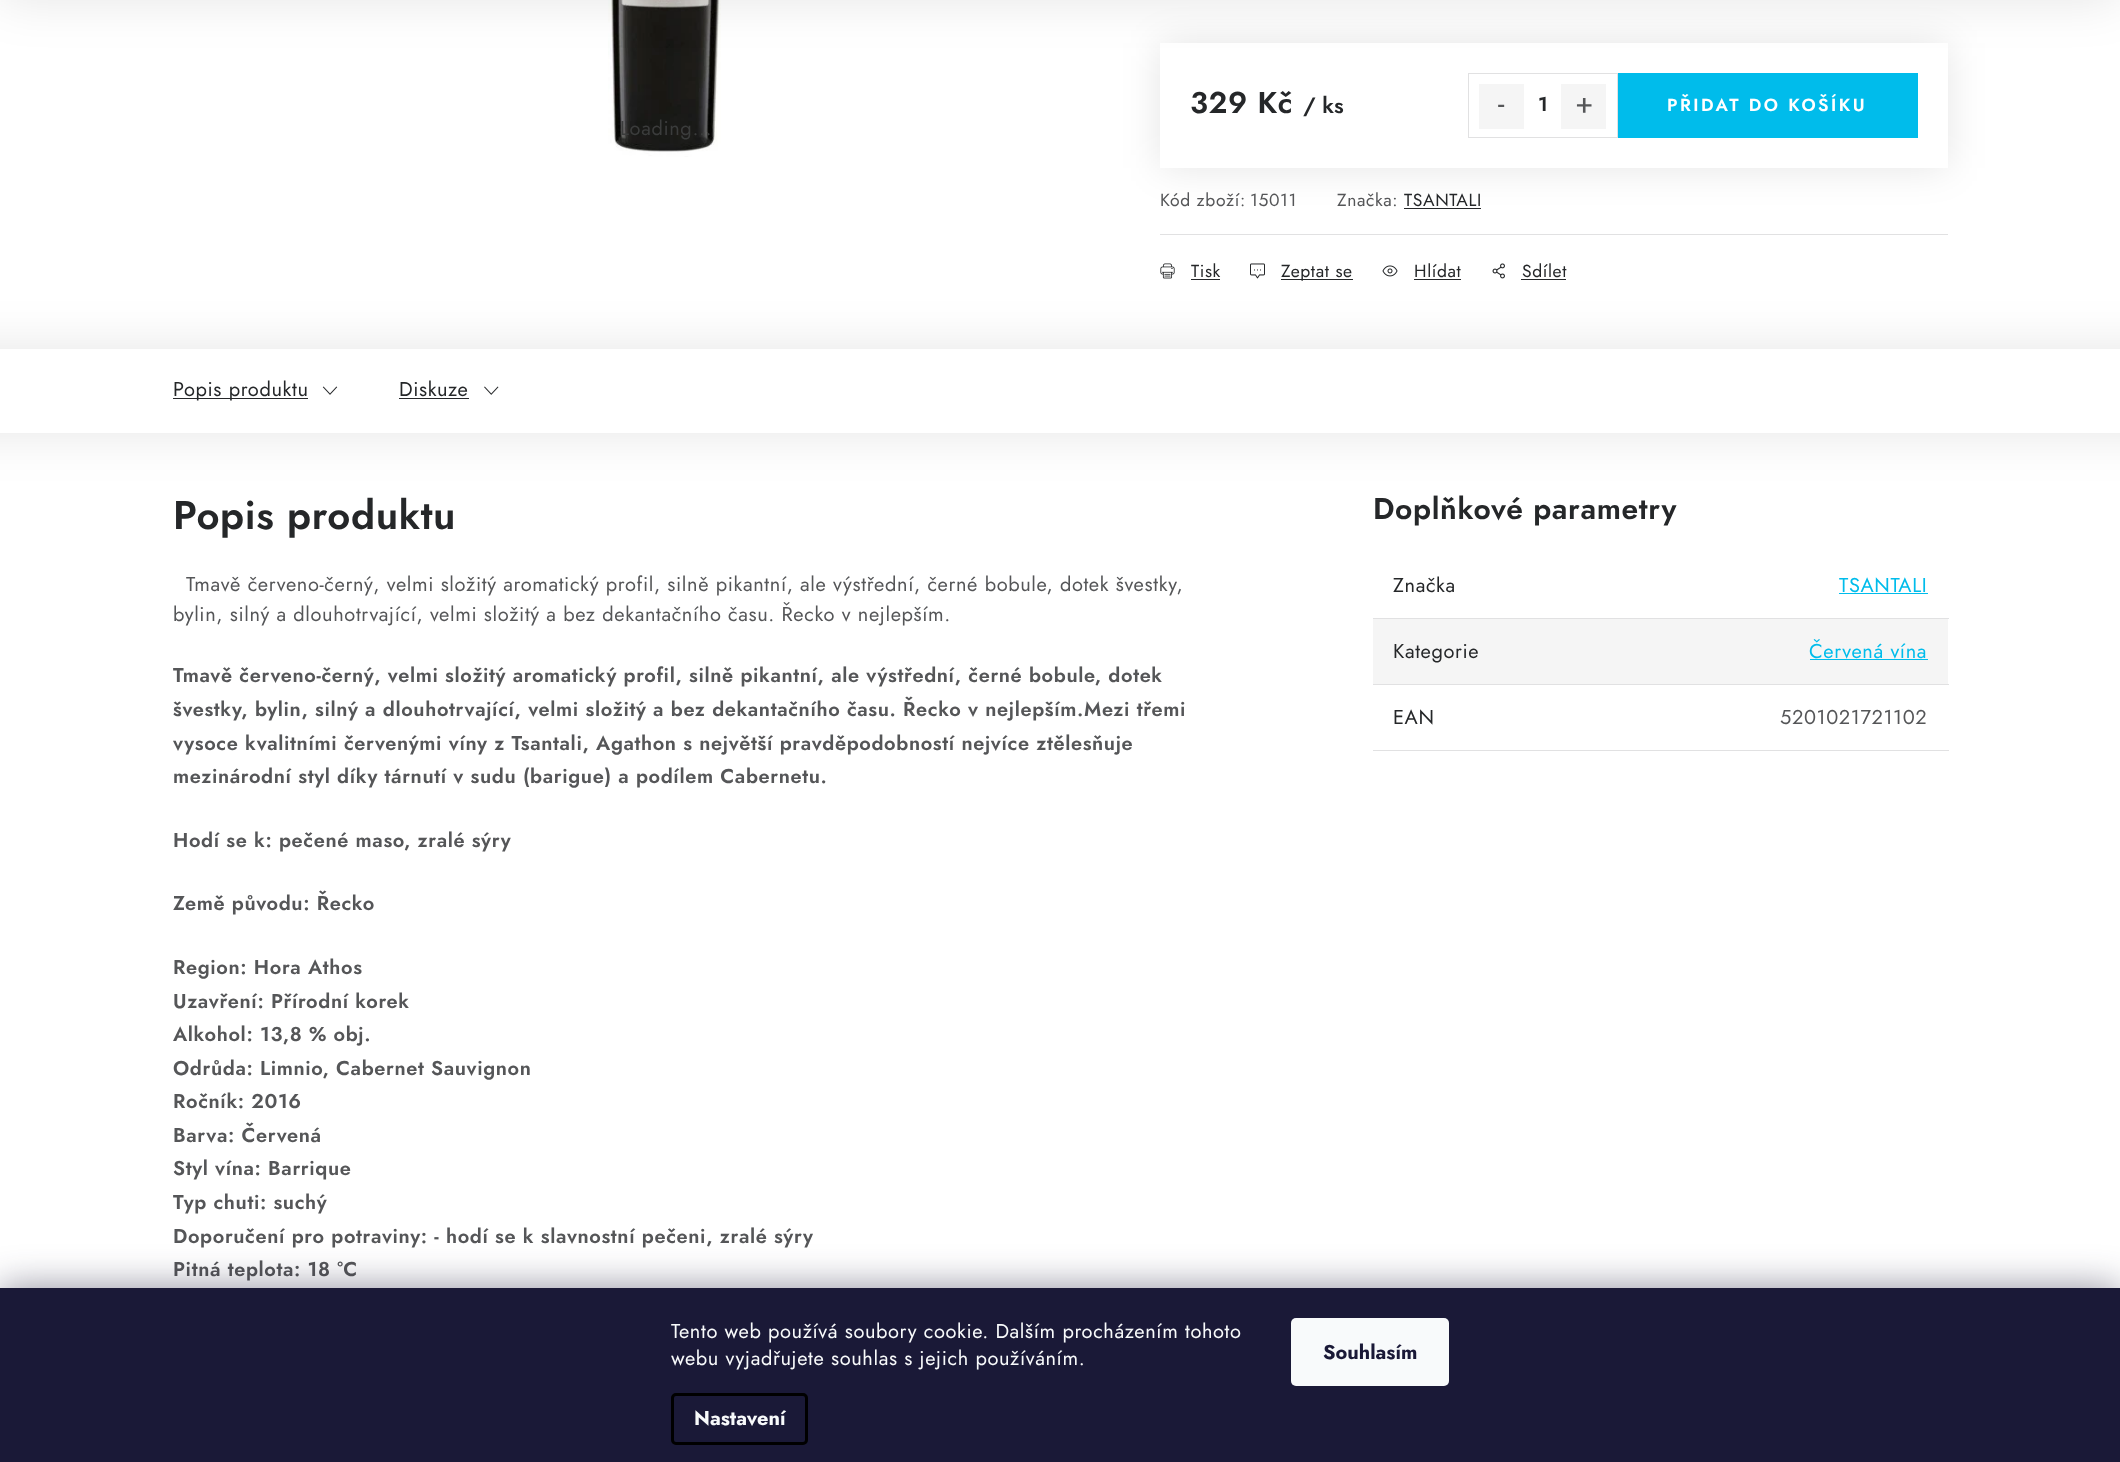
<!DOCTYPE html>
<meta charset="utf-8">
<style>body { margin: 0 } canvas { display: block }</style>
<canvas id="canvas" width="2120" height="1462"></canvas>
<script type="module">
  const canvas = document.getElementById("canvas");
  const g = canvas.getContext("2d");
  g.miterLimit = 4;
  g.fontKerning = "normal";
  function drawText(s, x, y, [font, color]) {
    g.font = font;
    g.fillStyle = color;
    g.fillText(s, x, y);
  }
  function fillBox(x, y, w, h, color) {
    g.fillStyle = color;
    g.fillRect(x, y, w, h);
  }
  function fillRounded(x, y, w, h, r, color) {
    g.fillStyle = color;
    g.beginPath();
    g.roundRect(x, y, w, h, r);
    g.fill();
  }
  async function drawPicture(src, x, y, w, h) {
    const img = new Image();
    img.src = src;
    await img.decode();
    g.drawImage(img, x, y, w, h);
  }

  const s1 = ["20px Jost", "#3B3C3C"];
  const s2 = ["600 30px Jost", "#252729"];
  const s3 = ["600 22px Jost", "#252729"];
  const s4 = ["30px Jost", "#555658"];
  const s5 = ["600 20px Jost", "#252729"];
  const s6 = ["600 17.5px Jost", "#FFFFFF"];
  const s7 = ["17.5px Jost", "#555658"];
  const s8 = ["17.5px Jost", "#252729"];
  const s9 = ["20px Jost", "#252729"];
  const s10 = ["600 40px Jost", "#252729"];
  const s11 = ["20px Jost", "#555658"];
  const s12 = ["600 20px Jost", "#555658"];
  const s13 = ["20px Jost", "#00BCEB"];
  const s14 = ["20px Jost", "#F8FAFB"];
  const s15 = ["bold 20px Jost", "#F8FAFB"];
  const s16 = ["bold 20px Jost", "#1A1937"];

  fillBox(0, 0, 2120, 1462, "#FFFFFF");
  await drawPicture("pic1.png", 608, 0, 113, 157);
  g.fillStyle = "rgba(0, 0, 0, 0.1)";
  g.filter = "blur(19px)";
  g.beginPath();
  g.rect(1160, 43, 788, 125);
  g.fill();
  g.filter = "none";
  fillBox(1160, 43, 788, 125, "#FFFFFF");
  g.strokeStyle = "#E1E1E2";
  g.strokeRect(1468.5, 73.5, 149, 64);
  fillBox(1618, 73, 300, 65, "#00BCEB");
  g.fillStyle = "rgba(0, 0, 0, 0.1)";
  g.filter = "blur(25px)";
  g.beginPath();
  g.rect(0, -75, 2120, 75);
  g.fill();
  g.filter = "none";
  g.letterSpacing = "0.62px";
  drawText("Loading...", 620, 135, s1);
  drawText("329 Kč", 1190, 113, s2);
  g.letterSpacing = "0px";
  drawText("/ ks", 1303, 113, s3);
  fillBox(1479, 84, 45, 45, "#F5F5F5");
  drawText("-", 1498, 113, s4);
  drawText("1", 1538, 111, s5);
  fillBox(1561, 84, 45, 45, "#F5F5F5");
  drawText("+", 1575, 113, s4);
  g.letterSpacing = "2.5px";
  drawText("PŘIDAT DO KOŠÍKU", 1667, 111, s6);
  fillBox(1160, 234, 788, 1, "#E1E1E2");
  g.letterSpacing = "0.62px";
  drawText("Kód zboží:", 1160, 206, s7);
  drawText("15011", 1250, 206, s7);
  drawText("Značka:", 1337, 206, s7);
  drawText("TSANTALI", 1404, 206, s8);
  fillBox(1404, 208, 77, 1, "#252729");
  await drawPicture("pic2.png", 1160, 263, 15, 16);
  drawText("Tisk", 1191, 277, s8);
  fillBox(1191, 279, 29, 1, "#252729");
  await drawPicture("pic3.png", 1250, 263, 15, 16);
  fillBox(1281, 279, 72, 1, "#252729");
  drawText("Zeptat se", 1281, 277, s8);
  await drawPicture("pic4.png", 1382, 265, 16, 12);
  drawText("Hlídat", 1414, 277, s8);
  fillBox(1414, 279, 47, 1, "#252729");
  await drawPicture("pic5.png", 1492, 263, 13, 16);
  drawText("Sdílet", 1522, 277, s8);
  fillBox(1521, 279, 45, 1, "#252729");
  g.save();
  g.beginPath();
  g.moveTo(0, 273);
  g.lineTo(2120, 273);
  g.lineTo(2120, 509);
  g.lineTo(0, 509);
  g.closePath();
  g.moveTo(-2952, 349);
  g.lineTo(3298, 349);
  g.lineTo(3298, 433);
  g.lineTo(-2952, 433);
  g.closePath();
  g.clip("evenodd");
  g.fillStyle = "rgba(0, 0, 0, 0.1)";
  g.filter = "blur(25px)";
  g.beginPath();
  g.rect(-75, 349, 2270, 84);
  g.fill();
  g.filter = "none";
  g.restore();
  fillBox(173, 398, 135, 1, "#252729");
  drawText("Popis produktu", 173, 396, s9);
  await drawPicture("pic6.png", 322, 386, 16, 9);
  drawText("Diskuze", 399, 396, s9);
  fillBox(399, 398, 70, 1, "#252729");
  await drawPicture("pic7.png", 484, 386, 15, 9);
  drawText("Popis produktu", 173, 529, s10);
  drawText("Tmavě červeno-černý, velmi složitý aromatický profil, silně pikantní, ale výstřední, černé bobule, dotek švestky,", 186, 591, s11);
  drawText("bylin, silný a dlouhotrvající, velmi složitý a bez dekantačního času. Řecko v nejlepším.", 173, 621, s11);
  drawText("Tmavě červeno-černý, velmi složitý aromatický profil, silně pikantní, ale výstřední, černé bobule, dotek", 173, 682, s12);
  drawText("švestky, bylin, silný a dlouhotrvající, velmi složitý a bez dekantačního času. Řecko v nejlepším.Mezi třemi", 173, 716, s12);
  drawText("vysoce kvalitními červenými víny z Tsantali, Agathon s největší pravděpodobností nejvíce ztělesňuje", 173, 750, s12);
  drawText("mezinárodní styl díky tárnutí v sudu (barigue) a podílem Cabernetu.", 173, 783, s12);
  drawText("Hodí se k: pečené maso, zralé sýry", 173, 847, s12);
  drawText("Země původu: Řecko", 173, 910, s12);
  drawText("Region: Hora Athos", 173, 974, s12);
  drawText("Uzavření: Přírodní korek", 173, 1008, s12);
  drawText("Alkohol: 13,8 % obj.", 173, 1041, s12);
  drawText("Odrůda: Limnio, Cabernet Sauvignon", 173, 1075, s12);
  drawText("Ročník: 2016", 173, 1108, s12);
  drawText("Barva: Červená", 173, 1142, s12);
  drawText("Styl vína: Barrique", 173, 1175, s12);
  drawText("Typ chuti: suchý", 173, 1209, s12);
  drawText("Doporučení pro potraviny: - hodí se k slavnostní pečeni, zralé sýry", 173, 1243, s12);
  drawText("Pitná teplota: 18 °C", 173, 1276, s12);
  drawText("Doplňkové parametry", 1373, 519, s2);
  fillBox(1373, 618, 576, 1, "#E1E1E2");
  drawText("Značka", 1393, 592, s9);
  drawText("TSANTALI", 1839, 592, s13);
  fillBox(1839, 593, 89, 1, "#00BCEB");
  fillBox(1373, 619, 575, 65, "#F5F5F5");
  fillBox(1373, 684, 576, 1, "#E1E1E2");
  drawText("Kategorie", 1393, 658, s9);
  drawText("Červená vína", 1809, 658, s13);
  fillBox(1810, 659, 118, 1, "#00BCEB");
  fillBox(1373, 750, 576, 1, "#E1E1E2");
  drawText("EAN", 1393, 724, s9);
  drawText("5201021721102", 1780, 724, s11);
  g.fillStyle = "rgba(27, 25, 57, 0.5)";
  g.filter = "blur(19px)";
  g.beginPath();
  g.rect(0, 1288, 2120, 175);
  g.fill();
  g.filter = "none";
  fillBox(0, 1288, 2120, 174, "#1A1937");
  drawText("Tento web používá soubory cookie. Dalším procházením tohoto", 671, 1338, s14);
  drawText("webu vyjadřujete souhlas s jejich používáním.", 671, 1365, s14);
  g.beginPath();
  g.roundRect(672.5, 1394.5, 134, 49, 3.5);
  g.strokeStyle = "#000000";
  g.lineWidth = 3;
  g.stroke();
  g.letterSpacing = "0px";
  drawText("Nastavení", 694, 1425, s15);
  fillRounded(1291, 1318, 158, 68, 5, "#F8FAFB");
  drawText("Souhlasím", 1323, 1359, s16);
</script>
